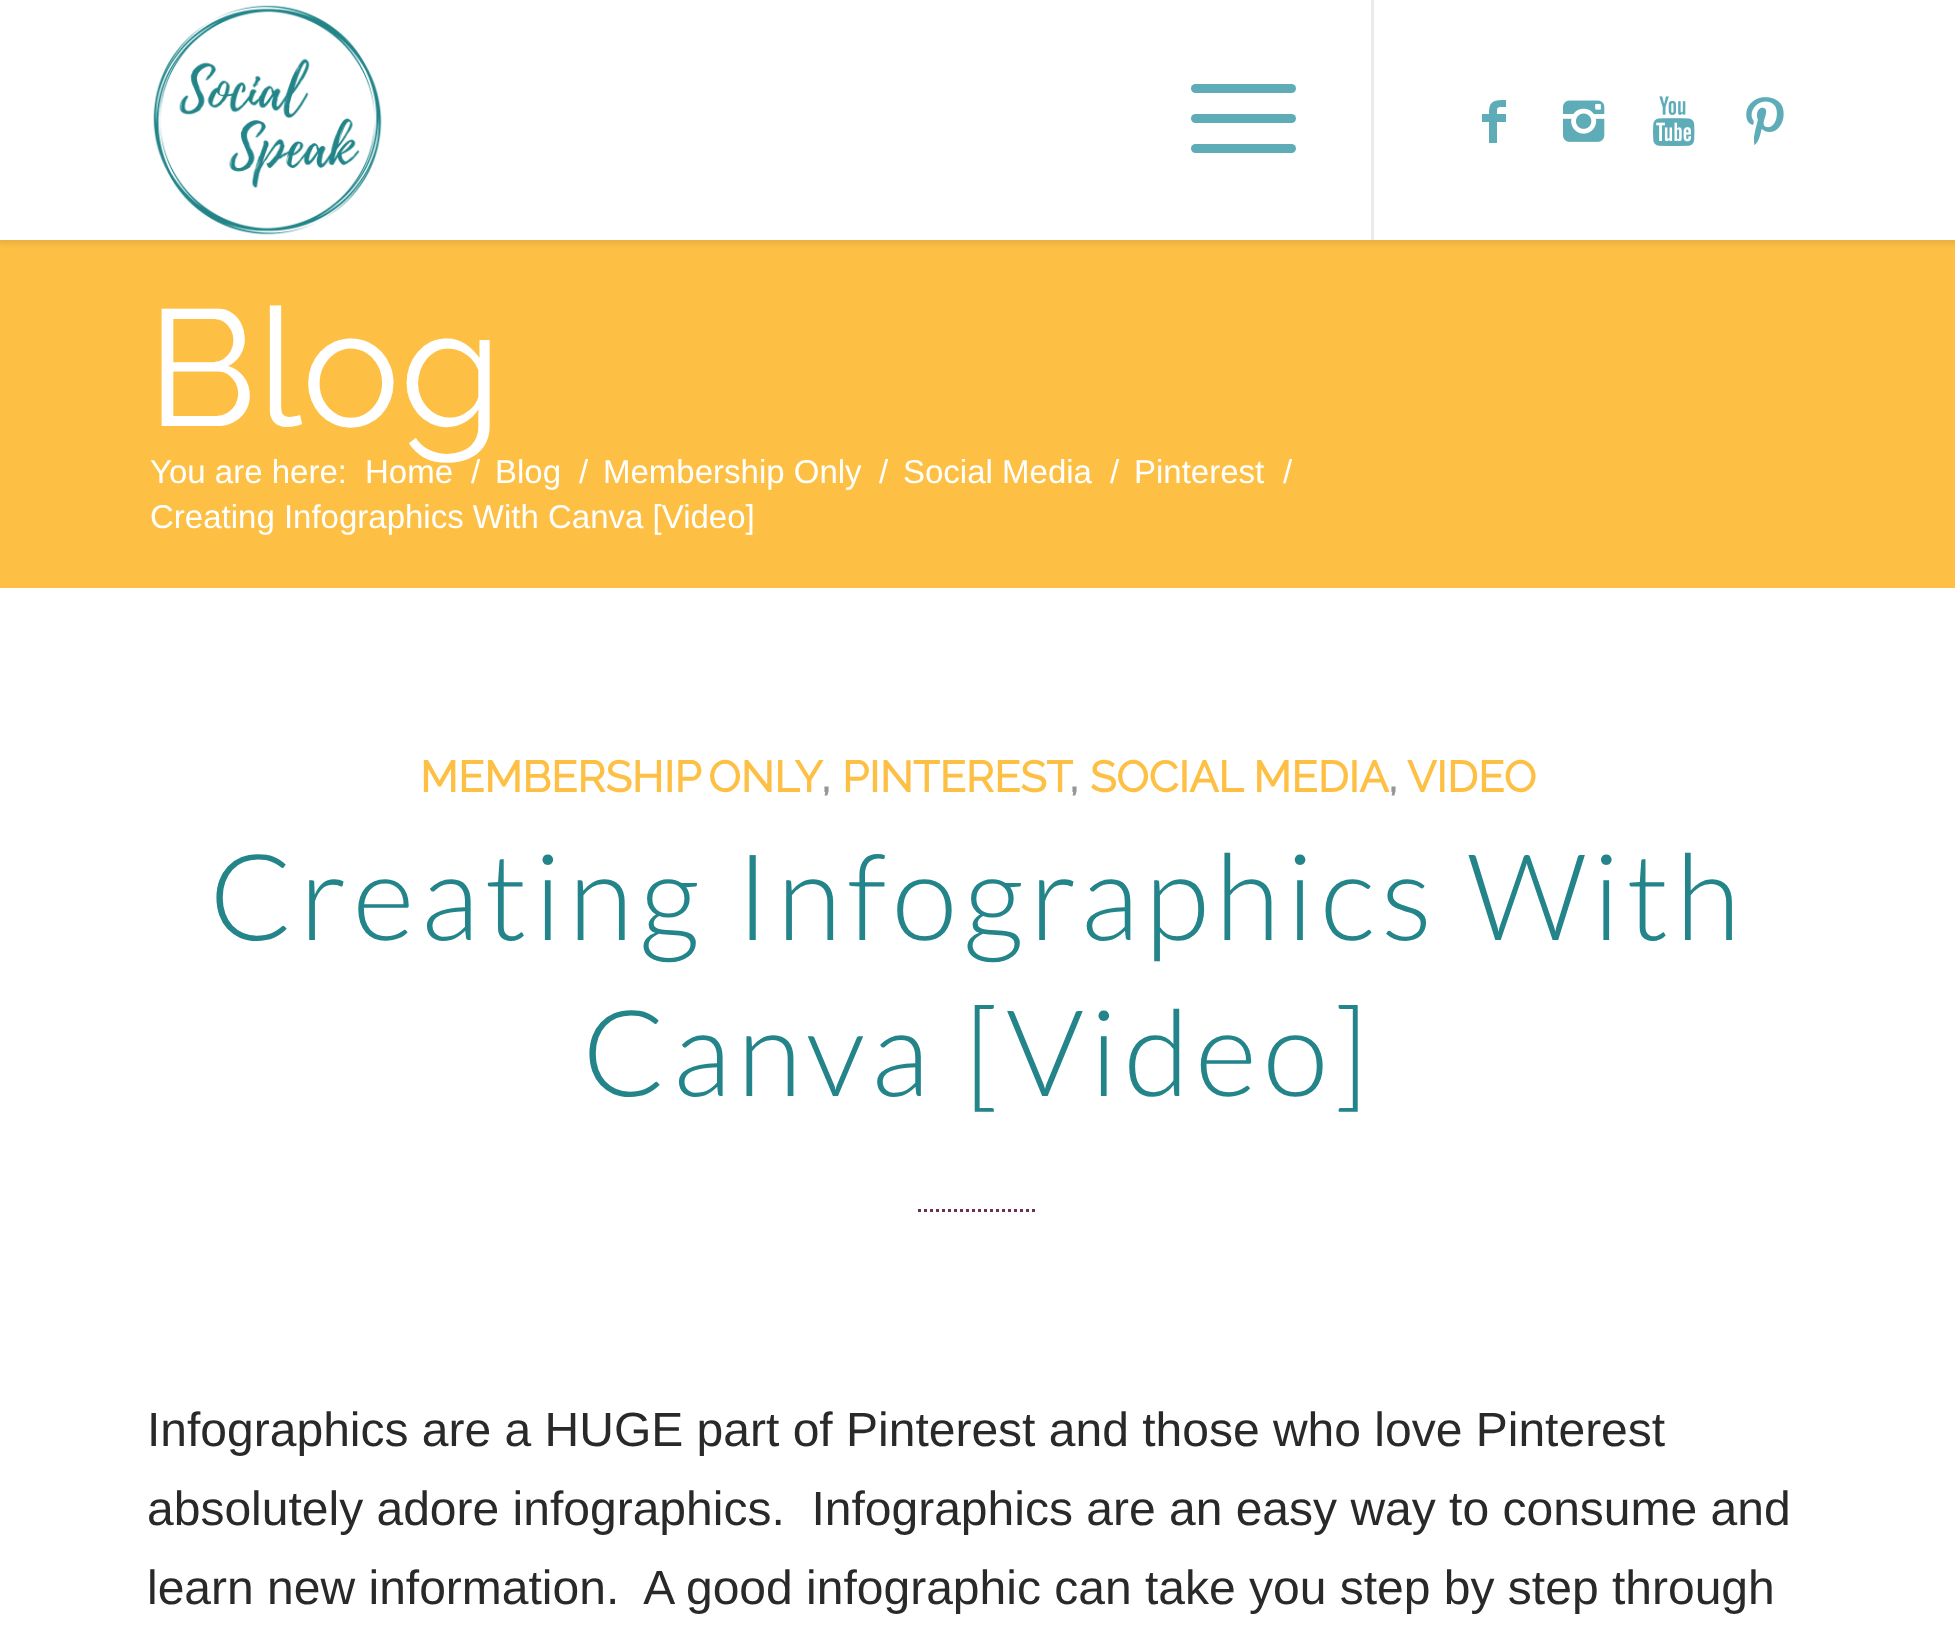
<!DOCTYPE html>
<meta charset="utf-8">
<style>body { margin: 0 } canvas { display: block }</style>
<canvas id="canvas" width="1955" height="1648"></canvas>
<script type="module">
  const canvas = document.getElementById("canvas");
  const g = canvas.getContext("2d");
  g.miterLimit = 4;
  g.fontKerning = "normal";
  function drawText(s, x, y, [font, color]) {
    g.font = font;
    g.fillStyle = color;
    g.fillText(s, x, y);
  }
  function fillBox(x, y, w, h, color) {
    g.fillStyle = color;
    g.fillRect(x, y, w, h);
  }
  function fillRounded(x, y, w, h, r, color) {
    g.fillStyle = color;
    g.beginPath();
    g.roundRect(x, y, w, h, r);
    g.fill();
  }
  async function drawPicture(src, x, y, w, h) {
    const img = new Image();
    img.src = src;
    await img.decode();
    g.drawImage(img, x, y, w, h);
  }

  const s1 = ["100 165px Raleway", "#FFFFFF"];
  const s2 = ["33px Liberation Sans", "#FFFFFF"];
  const s3 = ["bold 43.25px Raleway", "#FDC045"];
  const s4 = ["bold 43.25px Raleway", "#969696"];
  const s5 = ["300 120px Lato", "#238489"];
  const s6 = ["48px Liberation Sans", "#292929"];

  fillBox(0, 0, 1955, 1648, "#FFFFFF");
  fillBox(0, 240, 1955, 348, "#FDC045");
  g.fillStyle = "rgba(0, 0, 0, 0.1)";
  g.filter = "blur(3px)";
  g.beginPath();
  g.rect(-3, -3, 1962, 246);
  g.fill();
  g.filter = "none";
  fillBox(0, 0, 1955, 240, "#FFFFFF");
  await drawPicture("pic1.png", 153, 5, 229, 230);
  fillBox(1371, 0, 3, 240, "#EBEBEB");
  fillRounded(1191, 114, 105, 9, 4.5, "#5DACB8");
  fillRounded(1191, 84, 105, 9, 4.5, "#5DACB8");
  fillRounded(1191, 144, 105, 9, 4.5, "#5DACB8");
  g.beginPath();
  g.moveTo(1506, 107);
  g.bezierCurveTo(1497, 107, 1497, 106, 1497, 114);
  g.lineTo(1506, 114);
  g.lineTo(1506, 122);
  g.lineTo(1497, 122);
  g.lineTo(1497, 143);
  g.lineTo(1489, 143);
  g.lineTo(1489, 122);
  g.lineTo(1482, 122);
  g.lineTo(1482, 114);
  g.lineTo(1489, 114);
  g.bezierCurveTo(1489, 101, 1493, 100, 1506, 100);
  g.closePath();
  g.fill();
  await drawPicture("pic2.png", 1563, 100, 42, 42);
  await drawPicture("pic3.png", 1653, 96, 42, 50);
  await drawPicture("pic4.png", 1746, 97, 38, 48);
  drawText("Blog", 147, 426, s1);
  drawText("You are here:", 150, 483, s2);
  drawText("Home", 365, 483, s2);
  drawText("/", 471, 483, s2);
  drawText("Blog", 495, 483, s2);
  drawText("/", 579, 483, s2);
  drawText("Membership Only", 603, 483, s2);
  drawText("/", 879, 483, s2);
  drawText("Social Media", 903, 483, s2);
  drawText("/", 1110, 483, s2);
  drawText("Pinterest", 1134, 483, s2);
  drawText("/", 1283, 483, s2);
  drawText("Creating Infographics With Canva [Video]", 150, 528, s2);
  g.wordSpacing = "-3px";
  drawText("MEMBERSHIP ONLY", 420, 792, s3);
  g.wordSpacing = "0px";
  drawText(",", 821, 792, s4);
  drawText("PINTEREST", 842, 792, s3);
  drawText(",", 1069, 792, s4);
  drawText("SOCIAL MEDIA", 1090, 792, s3);
  drawText(",", 1388, 792, s4);
  drawText("VIDEO", 1407, 792, s3);
  g.letterSpacing = "6px";
  drawText("Creating Infographics With", 209, 940, s5);
  drawText("Canva [Video]", 582, 1096, s5);
  g.beginPath();
  g.moveTo(918, 1210.5);
  g.lineTo(1038, 1210.5);
  g.strokeStyle = "#6F2E52";
  g.lineWidth = 3;
  g.setLineDash([3, 3]);
  g.stroke();
  g.letterSpacing = "0px";
  drawText("Infographics are a HUGE part of Pinterest and those who love Pinterest", 147, 1446, s6);
  drawText("absolutely adore infographics.  Infographics are an easy way to consume and", 147, 1525, s6);
  drawText("learn new information.  A good infographic can take you step by step through", 147, 1604, s6);
</script>
